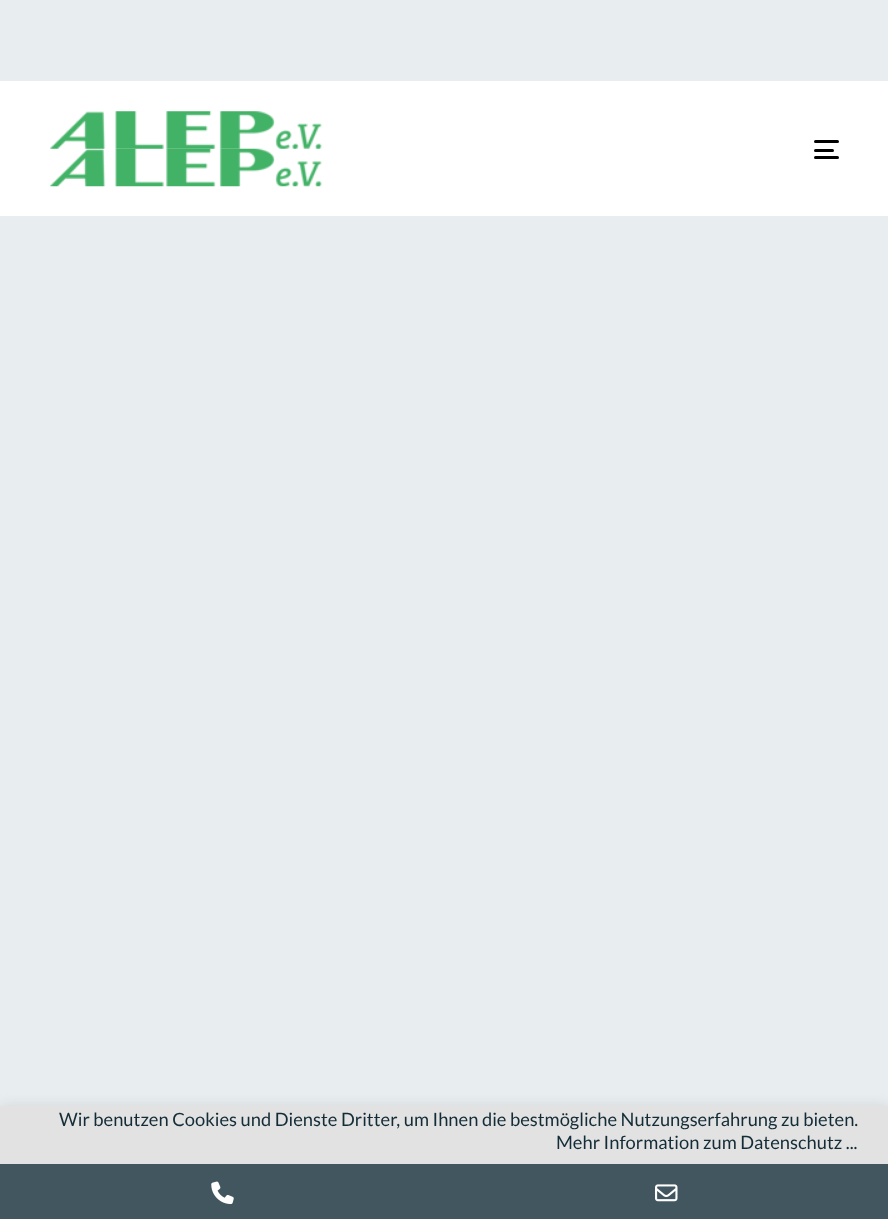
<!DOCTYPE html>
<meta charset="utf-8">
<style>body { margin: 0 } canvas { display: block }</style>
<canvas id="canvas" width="888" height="1219"></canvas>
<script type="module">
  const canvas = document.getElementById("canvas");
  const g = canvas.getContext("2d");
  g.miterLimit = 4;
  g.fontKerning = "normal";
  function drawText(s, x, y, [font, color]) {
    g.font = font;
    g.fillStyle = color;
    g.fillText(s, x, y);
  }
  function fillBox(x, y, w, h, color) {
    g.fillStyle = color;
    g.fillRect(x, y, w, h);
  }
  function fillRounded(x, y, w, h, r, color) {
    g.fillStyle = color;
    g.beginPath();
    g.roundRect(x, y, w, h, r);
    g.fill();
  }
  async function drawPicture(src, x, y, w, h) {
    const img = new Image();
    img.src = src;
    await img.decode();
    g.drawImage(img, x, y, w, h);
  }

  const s1 = ["18.35px Lato", "#132C37"];

  fillBox(0, 0, 888, 1219, "#E8EDF0");
  fillBox(0, 81, 888, 135, "#FFFFFF");
  await drawPicture("pic1.png", 50, 111, 272, 38);
  await drawPicture("pic2.png", 50, 148, 272, 39);
  fillRounded(814, 140, 25, 3, 1.5, "#000000");
  fillRounded(814, 149, 20, 3, 1.5, "#000000");
  fillRounded(814, 156, 25, 3, 1.5, "#000000");
  g.fillStyle = "rgba(172, 171, 171, 0.3)";
  g.filter = "blur(6px)";
  g.beginPath();
  g.rect(0, 1105, 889, 114);
  g.fill();
  g.filter = "none";
  fillBox(0, 1106, 888, 58, "#E2E2E2");
  drawText("Wir benutzen Cookies und Dienste Dritter, um Ihnen die bestmögliche Nutzungserfahrung zu bieten.", 59, 1126, s1);
  drawText("Mehr Information zum Datenschutz ...", 556, 1149, s1);
  fillBox(0, 1164, 888, 55, "#42565F");
  await drawPicture("pic3.png", 211, 1181, 23, 24);
  await drawPicture("pic4.png", 655, 1184, 23, 18);
</script>
